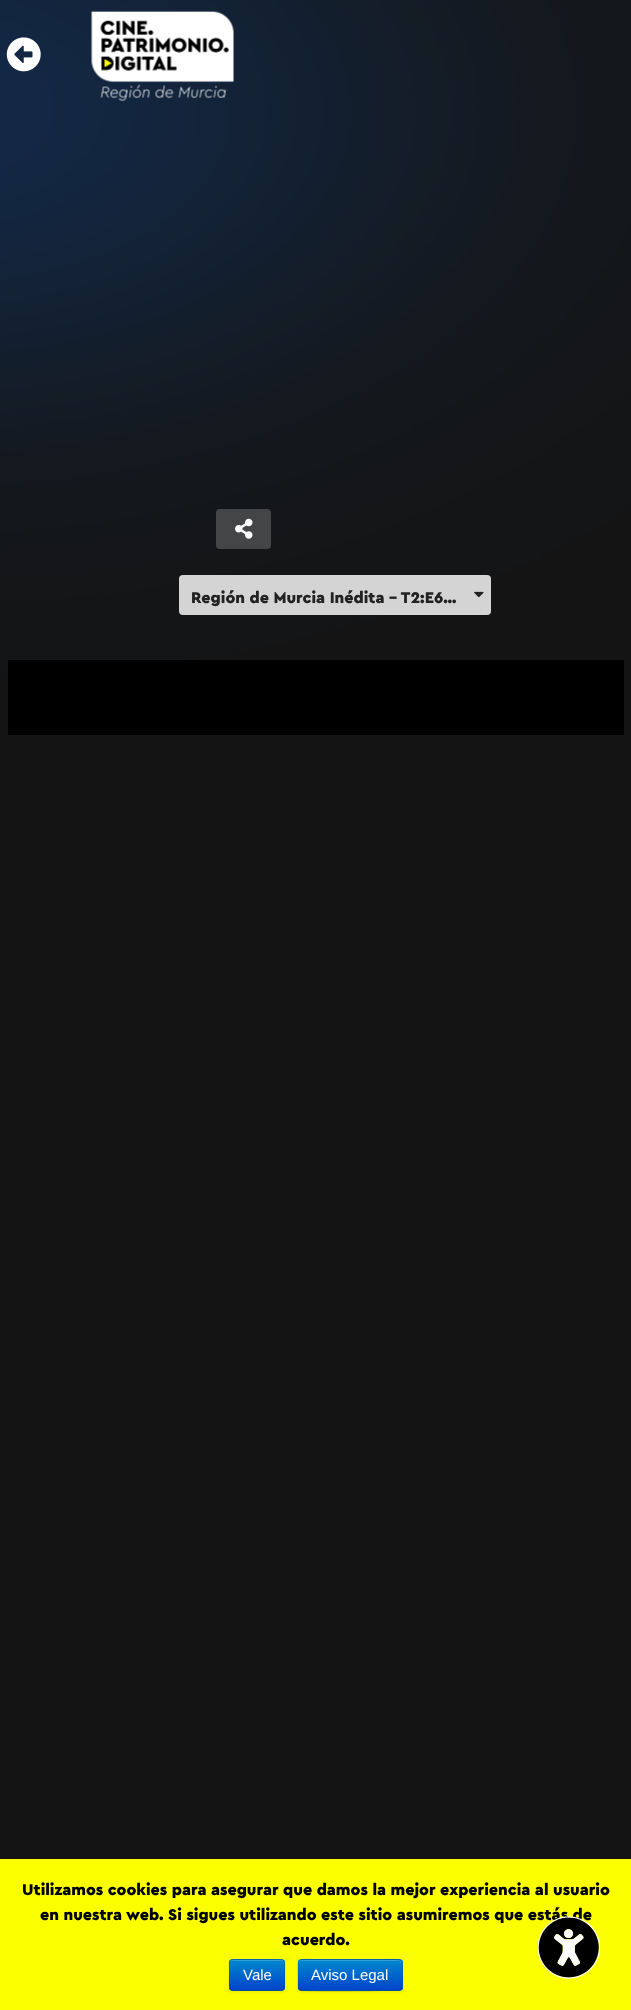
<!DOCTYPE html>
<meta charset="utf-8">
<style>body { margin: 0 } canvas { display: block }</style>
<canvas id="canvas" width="631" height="2010"></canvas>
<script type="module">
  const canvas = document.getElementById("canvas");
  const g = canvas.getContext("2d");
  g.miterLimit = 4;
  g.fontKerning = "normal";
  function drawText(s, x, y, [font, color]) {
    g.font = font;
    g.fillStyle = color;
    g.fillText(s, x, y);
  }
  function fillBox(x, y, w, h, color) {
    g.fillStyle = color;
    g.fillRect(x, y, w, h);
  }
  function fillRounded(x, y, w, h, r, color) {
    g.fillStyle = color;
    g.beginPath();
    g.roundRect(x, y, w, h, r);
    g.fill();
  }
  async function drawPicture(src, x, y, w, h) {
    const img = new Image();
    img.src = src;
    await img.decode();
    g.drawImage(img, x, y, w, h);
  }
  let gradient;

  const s1 = ["900 16.25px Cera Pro", "#222222"];
  const s2 = ["900 16.25px Cera Pro", "#000000"];
  const s3 = ["15px Liberation Sans", "#FFFFFF"];

  fillBox(0, 0, 631, 2010, "#FFFFFF");
  await drawPicture("pic1.png", 0, 0, 631, 1859);
  await drawPicture("pic2.png", 6, 37, 35, 35);
  await drawPicture("pic3.png", 91, 10, 143, 91);
  fillRounded(216, 509, 55, 40, 4, "#434547");
  await drawPicture("pic4.png", 235, 518, 18, 21);
  fillRounded(179, 575, 312, 40, 4, "#D4D4D4");
  drawText("Región de Murcia Inédita – T2:E6…", 191, 603, s1);
  await drawPicture("pic5.png", 474, 591, 10, 7);
  fillBox(8, 660, 616, 75, "#000000");
  fillBox(0, 1859, 631, 151, "#FCFF00");
  drawText("Utilizamos cookies para asegurar que damos la mejor experiencia al usuario", 22, 1895, s2);
  drawText("en nuestra web. Si sigues utilizando este sitio asumiremos que estás de", 40, 1920, s2);
  drawText("acuerdo.", 282, 1945, s2);
  g.fillStyle = "rgba(0, 0, 0, 0.05)";
  g.filter = "blur(1px)";
  g.beginPath();
  g.roundRect(229, 1960, 56, 33, 4);
  g.fill();
  g.filter = "none";
  fillRounded(229, 1959, 56, 32, 4, "#006DCC");
  g.save();
  g.beginPath();
  g.roundRect(229, 1959, 56, 32, 4);
  g.clip();
  gradient = g.createLinearGradient(257, 1960, 257, 1990);
  gradient.addColorStop(0, "#0088CC");
  gradient.addColorStop(1, "#0044CC");
  g.fillStyle = gradient;
  g.fillRect(229, 1960, 56, 30);
  g.restore();
  g.fillStyle = "#339FD6";
  g.beginPath();
  g.moveTo(232, 1961);
  g.lineTo(281, 1961);
  g.bezierCurveTo(283, 1961, 284, 1962, 284, 1964);
  g.bezierCurveTo(284, 1958, 279, 1960, 273, 1960);
  g.lineTo(241, 1960);
  g.bezierCurveTo(235, 1960, 230, 1958, 230, 1964);
  g.bezierCurveTo(230, 1962, 231, 1961, 232, 1961);
  g.closePath();
  g.fill();
  g.beginPath();
  g.moveTo(283.5, 1989.5);
  g.lineTo(281.5, 1990.5);
  g.lineTo(232, 1990.5);
  g.lineTo(230.5, 1989.5);
  g.strokeStyle = "rgba(0, 0, 0, 0.25)";
  g.lineWidth = 1.2;
  g.stroke();
  g.beginPath();
  g.moveTo(230.5, 1989.5);
  g.bezierCurveTo(228, 1987.5, 229.5, 1978, 229.5, 1975);
  g.bezierCurveTo(229.5, 1959, 226, 1959.5, 240.5, 1959.5);
  g.lineTo(273, 1959.5);
  g.bezierCurveTo(288, 1959.5, 284.5, 1959, 284.5, 1975);
  g.bezierCurveTo(284.5, 1978, 285.5, 1987.5, 283.5, 1989.5);
  g.strokeStyle = "rgba(0, 0, 0, 0.1)";
  g.stroke();
  drawText("Vale", 243, 1980, s3);
  g.fillStyle = "rgba(0, 0, 0, 0.05)";
  g.filter = "blur(1px)";
  g.beginPath();
  g.roundRect(298, 1960, 105, 33, 4);
  g.fill();
  g.filter = "none";
  fillRounded(298, 1959, 105, 32, 4, "#006DCC");
  g.save();
  g.beginPath();
  g.roundRect(298, 1959, 105, 32, 4);
  g.clip();
  gradient = g.createLinearGradient(350, 1960, 350, 1990);
  gradient.addColorStop(0, "#0088CC");
  gradient.addColorStop(1, "#0044CC");
  g.fillStyle = gradient;
  g.fillRect(298, 1960, 105, 30);
  g.restore();
  g.fillStyle = "#339FD6";
  g.beginPath();
  g.moveTo(301, 1961);
  g.lineTo(399, 1961);
  g.bezierCurveTo(400, 1961, 401, 1962, 401, 1964);
  g.lineTo(401, 1962);
  g.bezierCurveTo(401, 1961, 400, 1960, 398, 1960);
  g.lineTo(302, 1960);
  g.bezierCurveTo(300, 1960, 299, 1961, 299, 1962);
  g.lineTo(299, 1964);
  g.bezierCurveTo(299, 1962, 300, 1961, 301, 1961);
  g.closePath();
  g.fill();
  g.beginPath();
  g.moveTo(401, 1989.5);
  g.lineTo(399, 1990.5);
  g.lineTo(382.5, 1990.5);
  g.bezierCurveTo(373.5, 1990.5, 301.5, 1991.5, 299.5, 1990);
  g.lineTo(299, 1989.5);
  g.strokeStyle = "rgba(0, 0, 0, 0.25)";
  g.stroke();
  g.beginPath();
  g.moveTo(299, 1989.5);
  g.bezierCurveTo(297, 1987.5, 298, 1981.5, 298, 1979);
  g.bezierCurveTo(298, 1955.5, 293.5, 1959.5, 317.5, 1959.5);
  g.lineTo(382.5, 1959.5);
  g.bezierCurveTo(406.5, 1959.5, 402, 1955.5, 402, 1979);
  g.bezierCurveTo(402, 1981.5, 403, 1987.5, 401, 1989.5);
  g.strokeStyle = "rgba(0, 0, 0, 0.1)";
  g.stroke();
  drawText("Aviso Legal", 311, 1980, s3);
  await drawPicture("pic6.png", 538, 1916, 62, 63);
</script>
